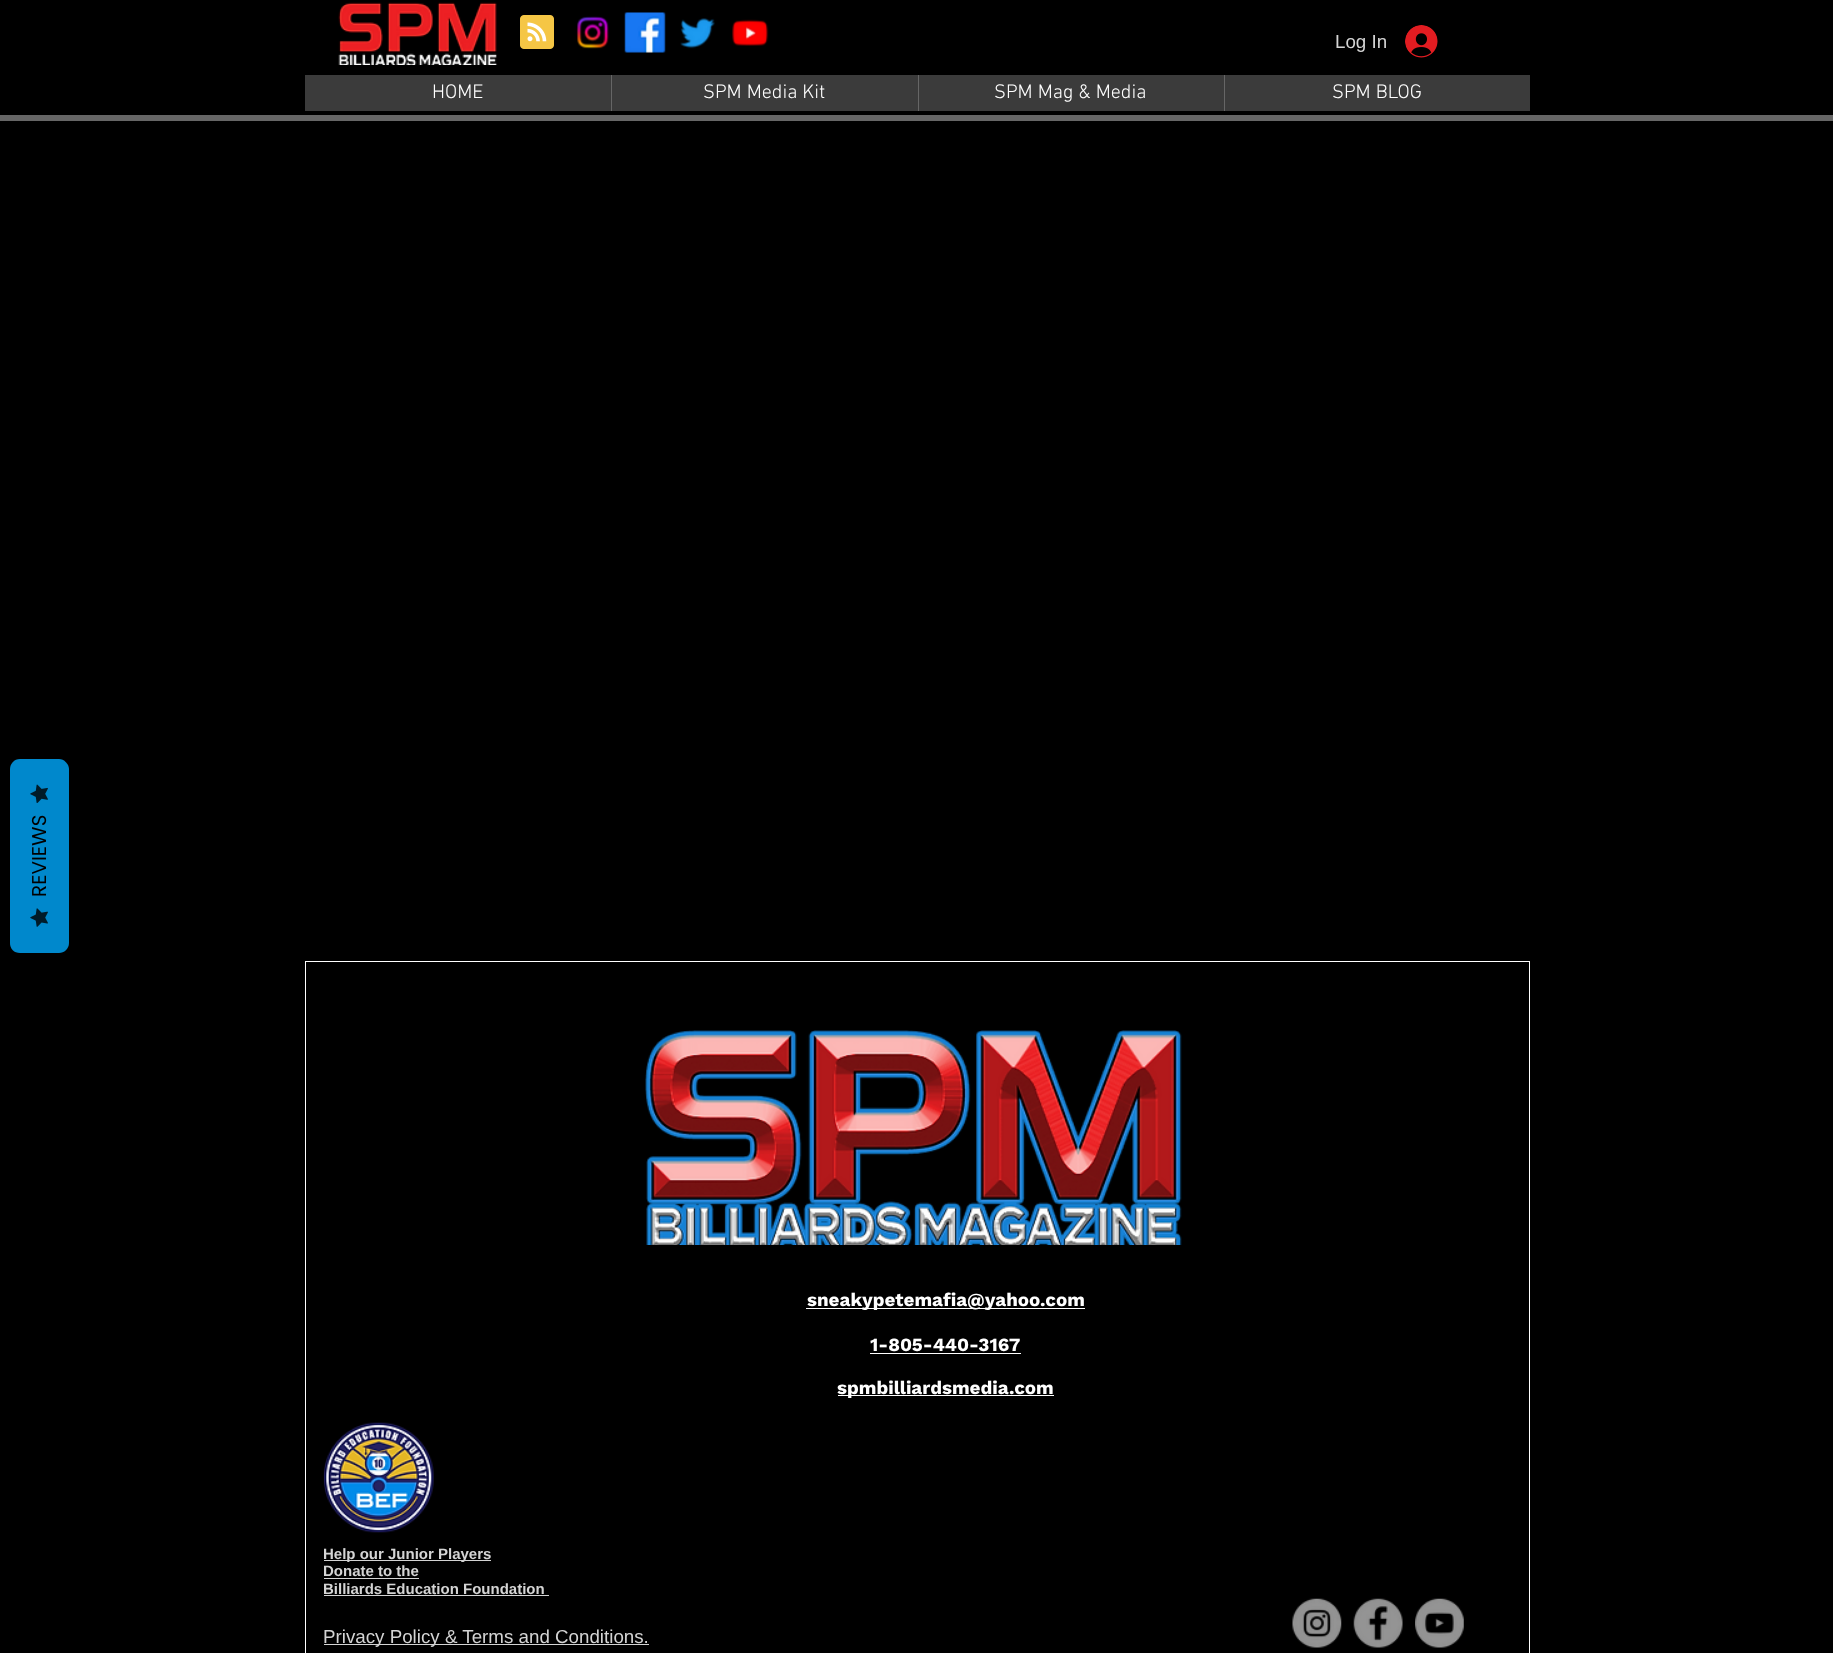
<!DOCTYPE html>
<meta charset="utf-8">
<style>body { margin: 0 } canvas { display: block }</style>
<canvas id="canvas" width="1833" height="1653"></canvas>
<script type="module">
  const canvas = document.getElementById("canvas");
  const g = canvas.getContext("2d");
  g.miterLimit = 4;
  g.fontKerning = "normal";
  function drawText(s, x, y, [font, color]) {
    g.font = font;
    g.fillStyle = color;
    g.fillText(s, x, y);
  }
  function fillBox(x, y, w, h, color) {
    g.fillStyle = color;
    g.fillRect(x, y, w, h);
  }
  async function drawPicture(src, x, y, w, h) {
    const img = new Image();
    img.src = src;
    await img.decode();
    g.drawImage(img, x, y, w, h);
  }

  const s1 = ["18.75px Liberation Sans", "#D4D4D4"];
  const s2 = ["300 20px 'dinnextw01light'", "#FFFFFF"];
  const s3 = ["bold 18.75px Work Sans", "#FFFFFF"];
  const s4 = ["bold 15px Liberation Sans", "#D4D4D4"];

  fillBox(0, 0, 1833, 1653, "#000000");
  g.fillStyle = "#0088CC";
  g.beginPath();
  g.moveTo(10, 943);
  g.lineTo(10, 769);
  g.bezierCurveTo(10, 764, 14, 759, 20, 759);
  g.lineTo(59, 759);
  g.bezierCurveTo(64, 759, 69, 764, 69, 769);
  g.lineTo(69, 943);
  g.bezierCurveTo(69, 949, 64, 953, 59, 953);
  g.lineTo(20, 953);
  g.bezierCurveTo(14, 953, 10, 949, 10, 943);
  g.closePath();
  g.fill();
  await drawPicture("pic1.png", 30, 784, 18, 19);
  g.font = "20px Poppins";
  g.fillStyle = "#000000";
  g.save();
  g.translate(46, 897);
  g.rotate(-90 * Math.PI / 180);
  g.fillText("REVIEWS", 0, 0);
  g.restore();
  await drawPicture("pic2.png", 30, 908, 18, 19);
  await drawPicture("pic3.png", 338, 2, 160, 63);
  await drawPicture("pic4.png", 520, 15, 34, 34);
  await drawPicture("pic5.png", 576, 16, 33, 33);
  await drawPicture("pic6.png", 624, 12, 42, 41);
  await drawPicture("pic7.png", 680, 18, 35, 31);
  await drawPicture("pic8.png", 732, 19, 37, 27);
  drawText("Log In", 1335, 48, s1);
  await drawPicture("pic9.png", 1405, 25, 33, 33);
  fillBox(305, 75, 1225, 36, "#3B3B3B");
  drawText("HOME", 432, 98, s2);
  fillBox(611, 75, 1, 36, "#666666");
  drawText("SPM Media Kit", 703, 98, s2);
  fillBox(918, 75, 1, 36, "#666666");
  drawText("SPM Mag & Media", 994, 98, s2);
  fillBox(1224, 75, 1, 36, "#666666");
  drawText("SPM BLOG", 1332, 98, s2);
  fillBox(0, 115, 1833, 6, "#666666");
  g.strokeStyle = "#FFFFFF";
  g.strokeRect(305.5, 961.5, 1224, 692);
  await drawPicture("pic10.png", 645, 1030, 537, 215);
  fillBox(806, 1308, 279, 1, "#FFFFFF");
  drawText("sneakypetemafia@yahoo.com", 807, 1306, s3);
  drawText("1-805-440-3167", 870, 1351, s3);
  fillBox(870, 1353, 151, 1, "#FFFFFF");
  fillBox(838, 1395, 216, 1, "#FFFFFF");
  drawText("spmbilliardsmedia.com", 837, 1394, s3);
  await drawPicture("pic11.png", 323, 1422, 111, 111);
  fillBox(324, 1560, 167, 1, "#D4D4D4");
  drawText("Help our Junior Players", 323, 1559, s4);
  drawText("Donate to the", 323, 1576, s4);
  fillBox(324, 1578, 95, 1, "#D4D4D4");
  drawText("Billiards Education Foundation", 323, 1594, s4);
  fillBox(324, 1595, 225, 1, "#D4D4D4");
  fillBox(324, 1644, 325, 1, "#D4D4D4");
  drawText("Privacy Policy & Terms and Conditions.", 323, 1643, s1);
  await drawPicture("pic12.png", 1292, 1598, 50, 50);
  await drawPicture("pic13.png", 1353, 1598, 50, 50);
  await drawPicture("pic14.png", 1415, 1598, 49, 50);
</script>
